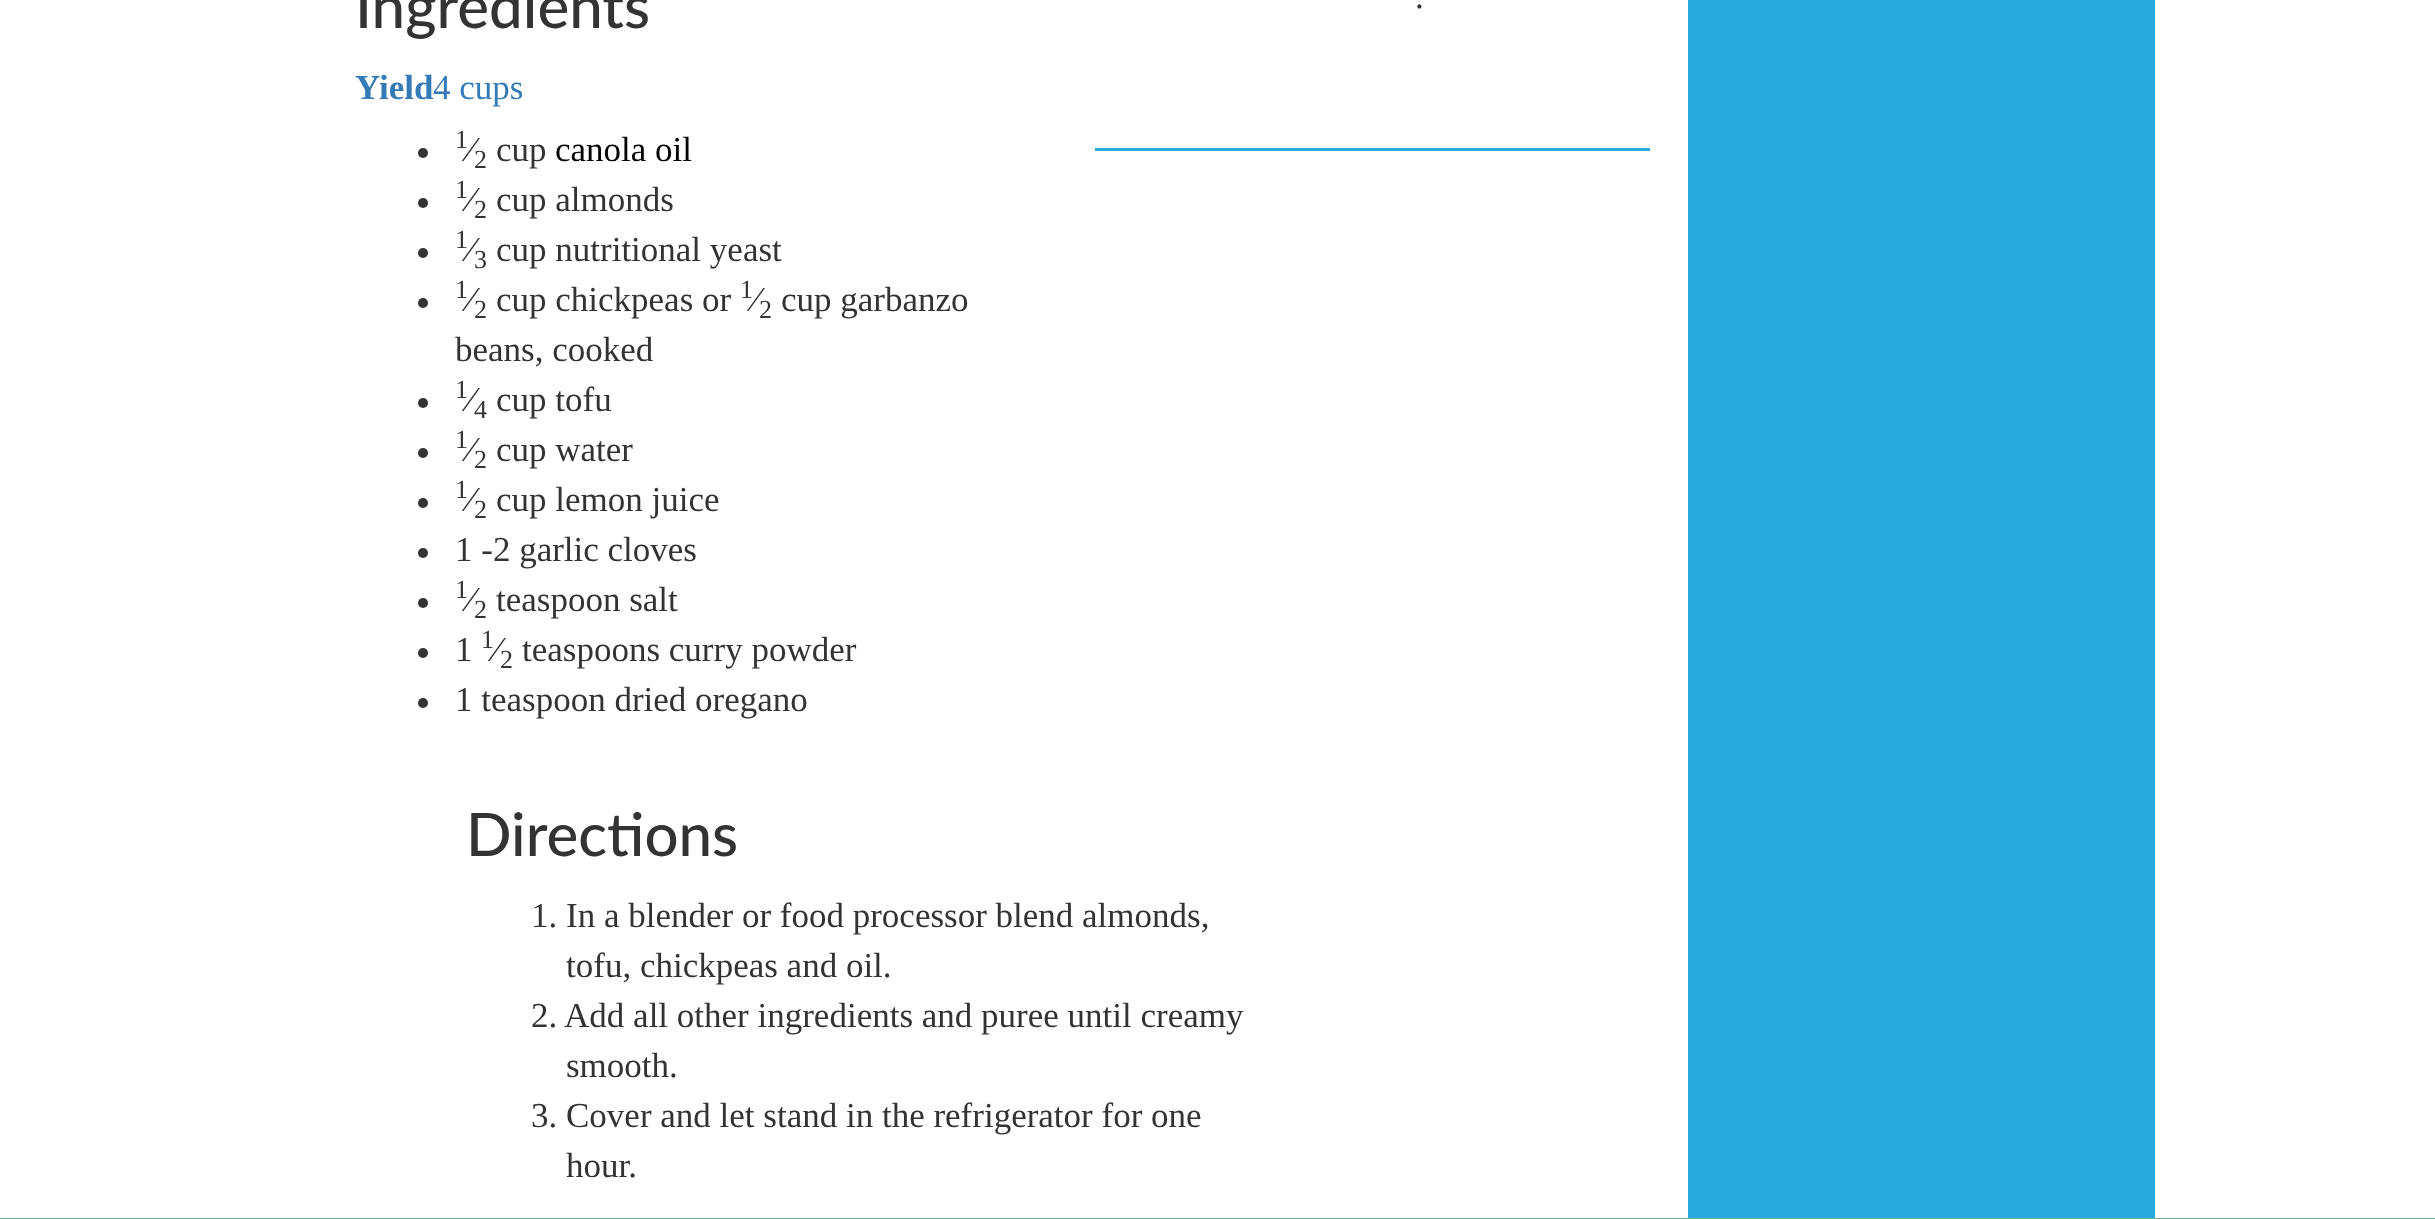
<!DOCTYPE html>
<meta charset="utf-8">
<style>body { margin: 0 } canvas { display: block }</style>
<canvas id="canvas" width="2435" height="1219"></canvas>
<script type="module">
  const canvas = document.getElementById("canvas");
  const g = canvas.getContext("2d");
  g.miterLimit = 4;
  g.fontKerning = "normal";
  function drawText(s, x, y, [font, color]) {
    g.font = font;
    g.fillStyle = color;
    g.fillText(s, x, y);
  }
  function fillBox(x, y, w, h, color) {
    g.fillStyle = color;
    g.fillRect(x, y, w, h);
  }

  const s1 = ["500 60px Lato", "#333333"];
  const s2 = ["bold 35px Liberation Serif", "#337AB7"];
  const s3 = ["35px Liberation Serif", "#337AB7"];
  const s4 = ["35px Liberation Serif", "#333333"];
  const s5 = ["26px Liberation Serif", "#333333"];
  const s6 = ["35px Liberation Serif", "#000000"];

  fillBox(0, 0, 2435, 1219, "#FFFFFF");
  fillBox(1688, 0, 467, 1218, "#29ABE0");
  drawText("Ingredients", 355, 28, s1);
  drawText("Yield", 355, 99, s2);
  drawText("4 cups", 433, 99, s3);
  drawText("⁄", 468, 161, s4);
  drawText("1", 455, 148, s5);
  drawText("canola oil", 555, 161, s6);
  g.fillStyle = "#333333";
  g.beginPath();
  g.arc(423, 153, 5, 0, Math.PI * 2);
  g.fill();
  drawText("cup", 496, 161, s4);
  drawText("2", 474, 168, s5);
  drawText("⁄", 468, 211, s4);
  drawText("1", 455, 198, s5);
  drawText("cup almonds", 496, 211, s4);
  g.beginPath();
  g.arc(423, 203, 5, 0, Math.PI * 2);
  g.fill();
  drawText("2", 474, 218, s5);
  drawText("⁄", 468, 261, s4);
  drawText("1", 455, 248, s5);
  drawText("cup nutritional yeast", 496, 261, s4);
  g.beginPath();
  g.arc(423, 253, 5, 0, Math.PI * 2);
  g.fill();
  drawText("3", 474, 268, s5);
  drawText("⁄", 468, 311, s4);
  drawText("1", 455, 298, s5);
  drawText("cup chickpeas or", 496, 311, s4);
  drawText("⁄", 753, 311, s4);
  drawText("1", 740, 298, s5);
  drawText("cup garbanzo", 781, 311, s4);
  g.beginPath();
  g.arc(423, 303, 5, 0, Math.PI * 2);
  g.fill();
  drawText("2", 474, 318, s5);
  drawText("2", 759, 318, s5);
  drawText("beans, cooked", 455, 361, s4);
  drawText("⁄", 468, 411, s4);
  drawText("1", 455, 398, s5);
  drawText("cup tofu", 496, 411, s4);
  g.beginPath();
  g.arc(423, 403, 5, 0, Math.PI * 2);
  g.fill();
  drawText("4", 474, 418, s5);
  drawText("⁄", 468, 461, s4);
  drawText("1", 455, 448, s5);
  g.beginPath();
  g.arc(423, 453, 5, 0, Math.PI * 2);
  g.fill();
  drawText("cup water", 496, 461, s4);
  drawText("2", 474, 468, s5);
  drawText("⁄", 468, 511, s4);
  drawText("1", 455, 498, s5);
  drawText("cup lemon juice", 496, 511, s4);
  g.beginPath();
  g.arc(423, 503, 5, 0, Math.PI * 2);
  g.fill();
  drawText("2", 474, 518, s5);
  g.beginPath();
  g.arc(423, 553, 5, 0, Math.PI * 2);
  g.fill();
  drawText("1 -2 garlic cloves", 455, 561, s4);
  drawText("⁄", 468, 611, s4);
  drawText("1", 455, 598, s5);
  drawText("teaspoon salt", 496, 611, s4);
  g.beginPath();
  g.arc(423, 603, 5, 0, Math.PI * 2);
  g.fill();
  drawText("2", 474, 618, s5);
  drawText("1", 455, 661, s4);
  drawText("⁄", 494, 661, s4);
  drawText("1", 481, 648, s5);
  drawText("teaspoons curry powder", 522, 661, s4);
  g.beginPath();
  g.arc(423, 653, 5, 0, Math.PI * 2);
  g.fill();
  drawText("2", 500, 668, s5);
  g.beginPath();
  g.arc(423, 703, 5, 0, Math.PI * 2);
  g.fill();
  drawText("1 teaspoon dried oregano", 455, 711, s4);
  drawText(".", 1415, 8, s4);
  fillBox(1095, 148, 555, 3, "#29ABE0");
  drawText("Directions", 466, 856, s1);
  drawText("1. In a blender or food processor blend almonds,", 531, 927, s4);
  drawText("tofu, chickpeas and oil.", 566, 977, s4);
  drawText("2. Add all other ingredients and puree until creamy", 531, 1027, s4);
  drawText("smooth.", 566, 1077, s4);
  drawText("3. Cover and let stand in the refrigerator for one", 531, 1127, s4);
  drawText("hour.", 566, 1177, s4);
  fillBox(0, 1218, 2435, 1, "#64B58E");
</script>
